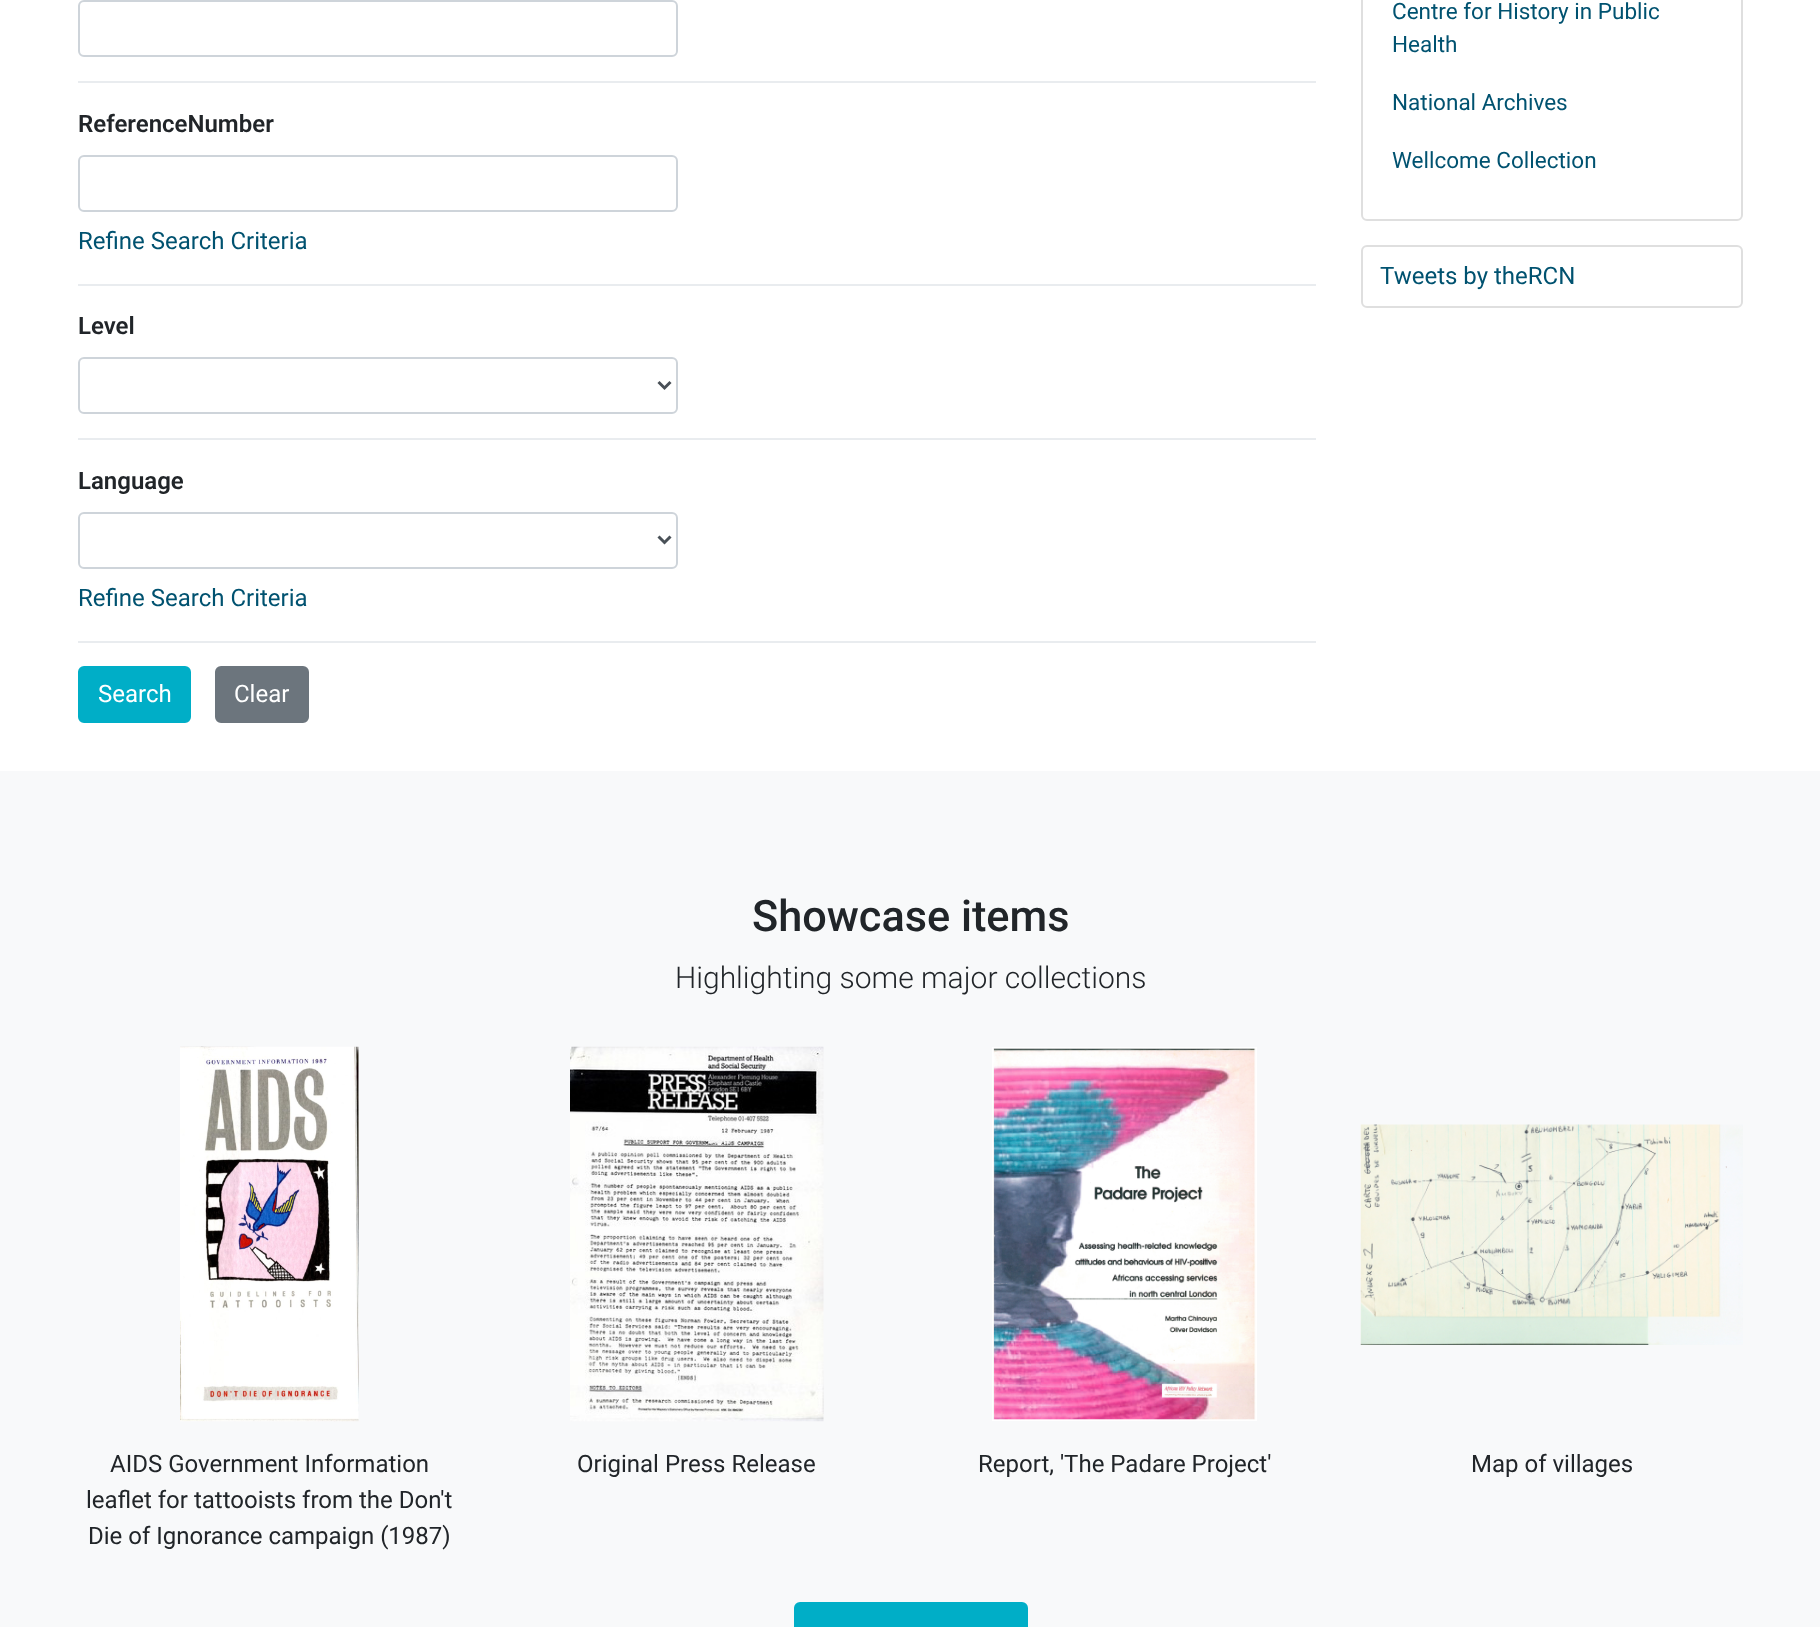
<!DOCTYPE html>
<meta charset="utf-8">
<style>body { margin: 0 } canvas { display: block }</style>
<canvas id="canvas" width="1820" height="1627"></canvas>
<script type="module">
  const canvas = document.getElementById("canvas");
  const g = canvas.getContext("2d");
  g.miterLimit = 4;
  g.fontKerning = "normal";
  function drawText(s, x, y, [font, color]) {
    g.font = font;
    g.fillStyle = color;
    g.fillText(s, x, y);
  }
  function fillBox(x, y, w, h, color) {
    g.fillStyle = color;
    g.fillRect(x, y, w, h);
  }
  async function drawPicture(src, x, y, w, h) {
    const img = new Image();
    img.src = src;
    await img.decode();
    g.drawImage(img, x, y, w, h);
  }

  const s1 = ["600 24px Roboto", "#212529"];
  const s2 = ["24px Roboto", "#005270"];
  const s3 = ["24px Roboto", "#FFFFFF"];
  const s4 = ["22.5px Roboto", "#005270"];
  const s5 = ["500 43.25px Roboto", "#212529"];
  const s6 = ["300 30px Roboto", "#212529"];
  const s7 = ["24px Roboto", "#212529"];

  fillBox(0, 0, 1820, 1627, "#FFFFFF");
  fillBox(78, 81, 1238, 2, "#E9ECEF");
  g.beginPath();
  g.roundRect(79, 1, 598, 55, 5);
  g.strokeStyle = "#CED4DA";
  g.lineWidth = 2;
  g.stroke();
  fillBox(78, 284, 1238, 2, "#E9ECEF");
  drawText("ReferenceNumber", 78, 132, s1);
  g.beginPath();
  g.roundRect(79, 156, 598, 55, 5);
  g.stroke();
  drawText("Refine Search Criteria", 78, 249, s2);
  fillBox(78, 438, 1238, 2, "#E9ECEF");
  drawText("Level", 78, 334, s1);
  g.beginPath();
  g.roundRect(79, 358, 598, 55, 5);
  g.stroke();
  g.beginPath();
  g.moveTo(658.5, 382);
  g.lineTo(664.5, 388);
  g.lineTo(670.5, 382);
  g.strokeStyle = "#495057";
  g.lineWidth = 3;
  g.stroke();
  fillBox(78, 641, 1238, 2, "#E9ECEF");
  drawText("Language", 78, 489, s1);
  g.beginPath();
  g.roundRect(79, 513, 598, 55, 5);
  g.strokeStyle = "#CED4DA";
  g.lineWidth = 2;
  g.stroke();
  g.beginPath();
  g.moveTo(658.5, 536.5);
  g.lineTo(664.5, 542.5);
  g.lineTo(670.5, 536.5);
  g.strokeStyle = "#495057";
  g.lineWidth = 3;
  g.stroke();
  drawText("Refine Search Criteria", 78, 606, s2);
  g.fillStyle = "#00AEC7";
  g.beginPath();
  g.roundRect(79, 667, 111, 55, 5);
  g.fill();
  g.strokeStyle = "#00AEC7";
  g.lineWidth = 2;
  g.stroke();
  drawText("Search", 98, 702, s3);
  g.fillStyle = "#6C757D";
  g.beginPath();
  g.roundRect(216, 667, 92, 55, 5);
  g.fill();
  g.strokeStyle = "#6C757D";
  g.stroke();
  drawText("Clear", 234, 702, s3);
  g.beginPath();
  g.roundRect(1362, -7, 380, 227, 5);
  g.strokeStyle = "#DFDFDF";
  g.stroke();
  drawText("Centre for History in Public", 1392, 19, s4);
  drawText("Health", 1392, 52, s4);
  drawText("National Archives", 1392, 110, s4);
  drawText("Wellcome Collection", 1392, 168, s4);
  g.beginPath();
  g.roundRect(1362, 246, 380, 61, 5);
  g.stroke();
  drawText("Tweets by theRCN", 1380, 284, s2);
  fillBox(0, 771, 1820, 856, "#F8F9FA");
  drawText("Showcase items", 752, 931, s5);
  drawText("Highlighting some major collections", 675, 988, s6);
  await drawPicture("pic1.png", 180, 1046, 179, 376);
  drawText("AIDS Government Information", 110, 1472, s7);
  drawText("leaflet for tattooists from the Don't", 86, 1508, s7);
  drawText("Die of Ignorance campaign (1987)", 88, 1544, s7);
  await drawPicture("pic2.png", 570, 1046, 254, 376);
  drawText("Original Press Release", 577, 1472, s7);
  await drawPicture("pic3.png", 992, 1047, 265, 374);
  drawText("Report, 'The Padare Project'", 978, 1472, s7);
  await drawPicture("pic4.png", 1360, 1124, 383, 221);
  drawText("Map of villages", 1471, 1472, s7);
  g.fillStyle = "#00AEC7";
  g.beginPath();
  g.roundRect(795, 1603, 232, 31, 5);
  g.fill();
  g.strokeStyle = "#00AEC7";
  g.stroke();
</script>
